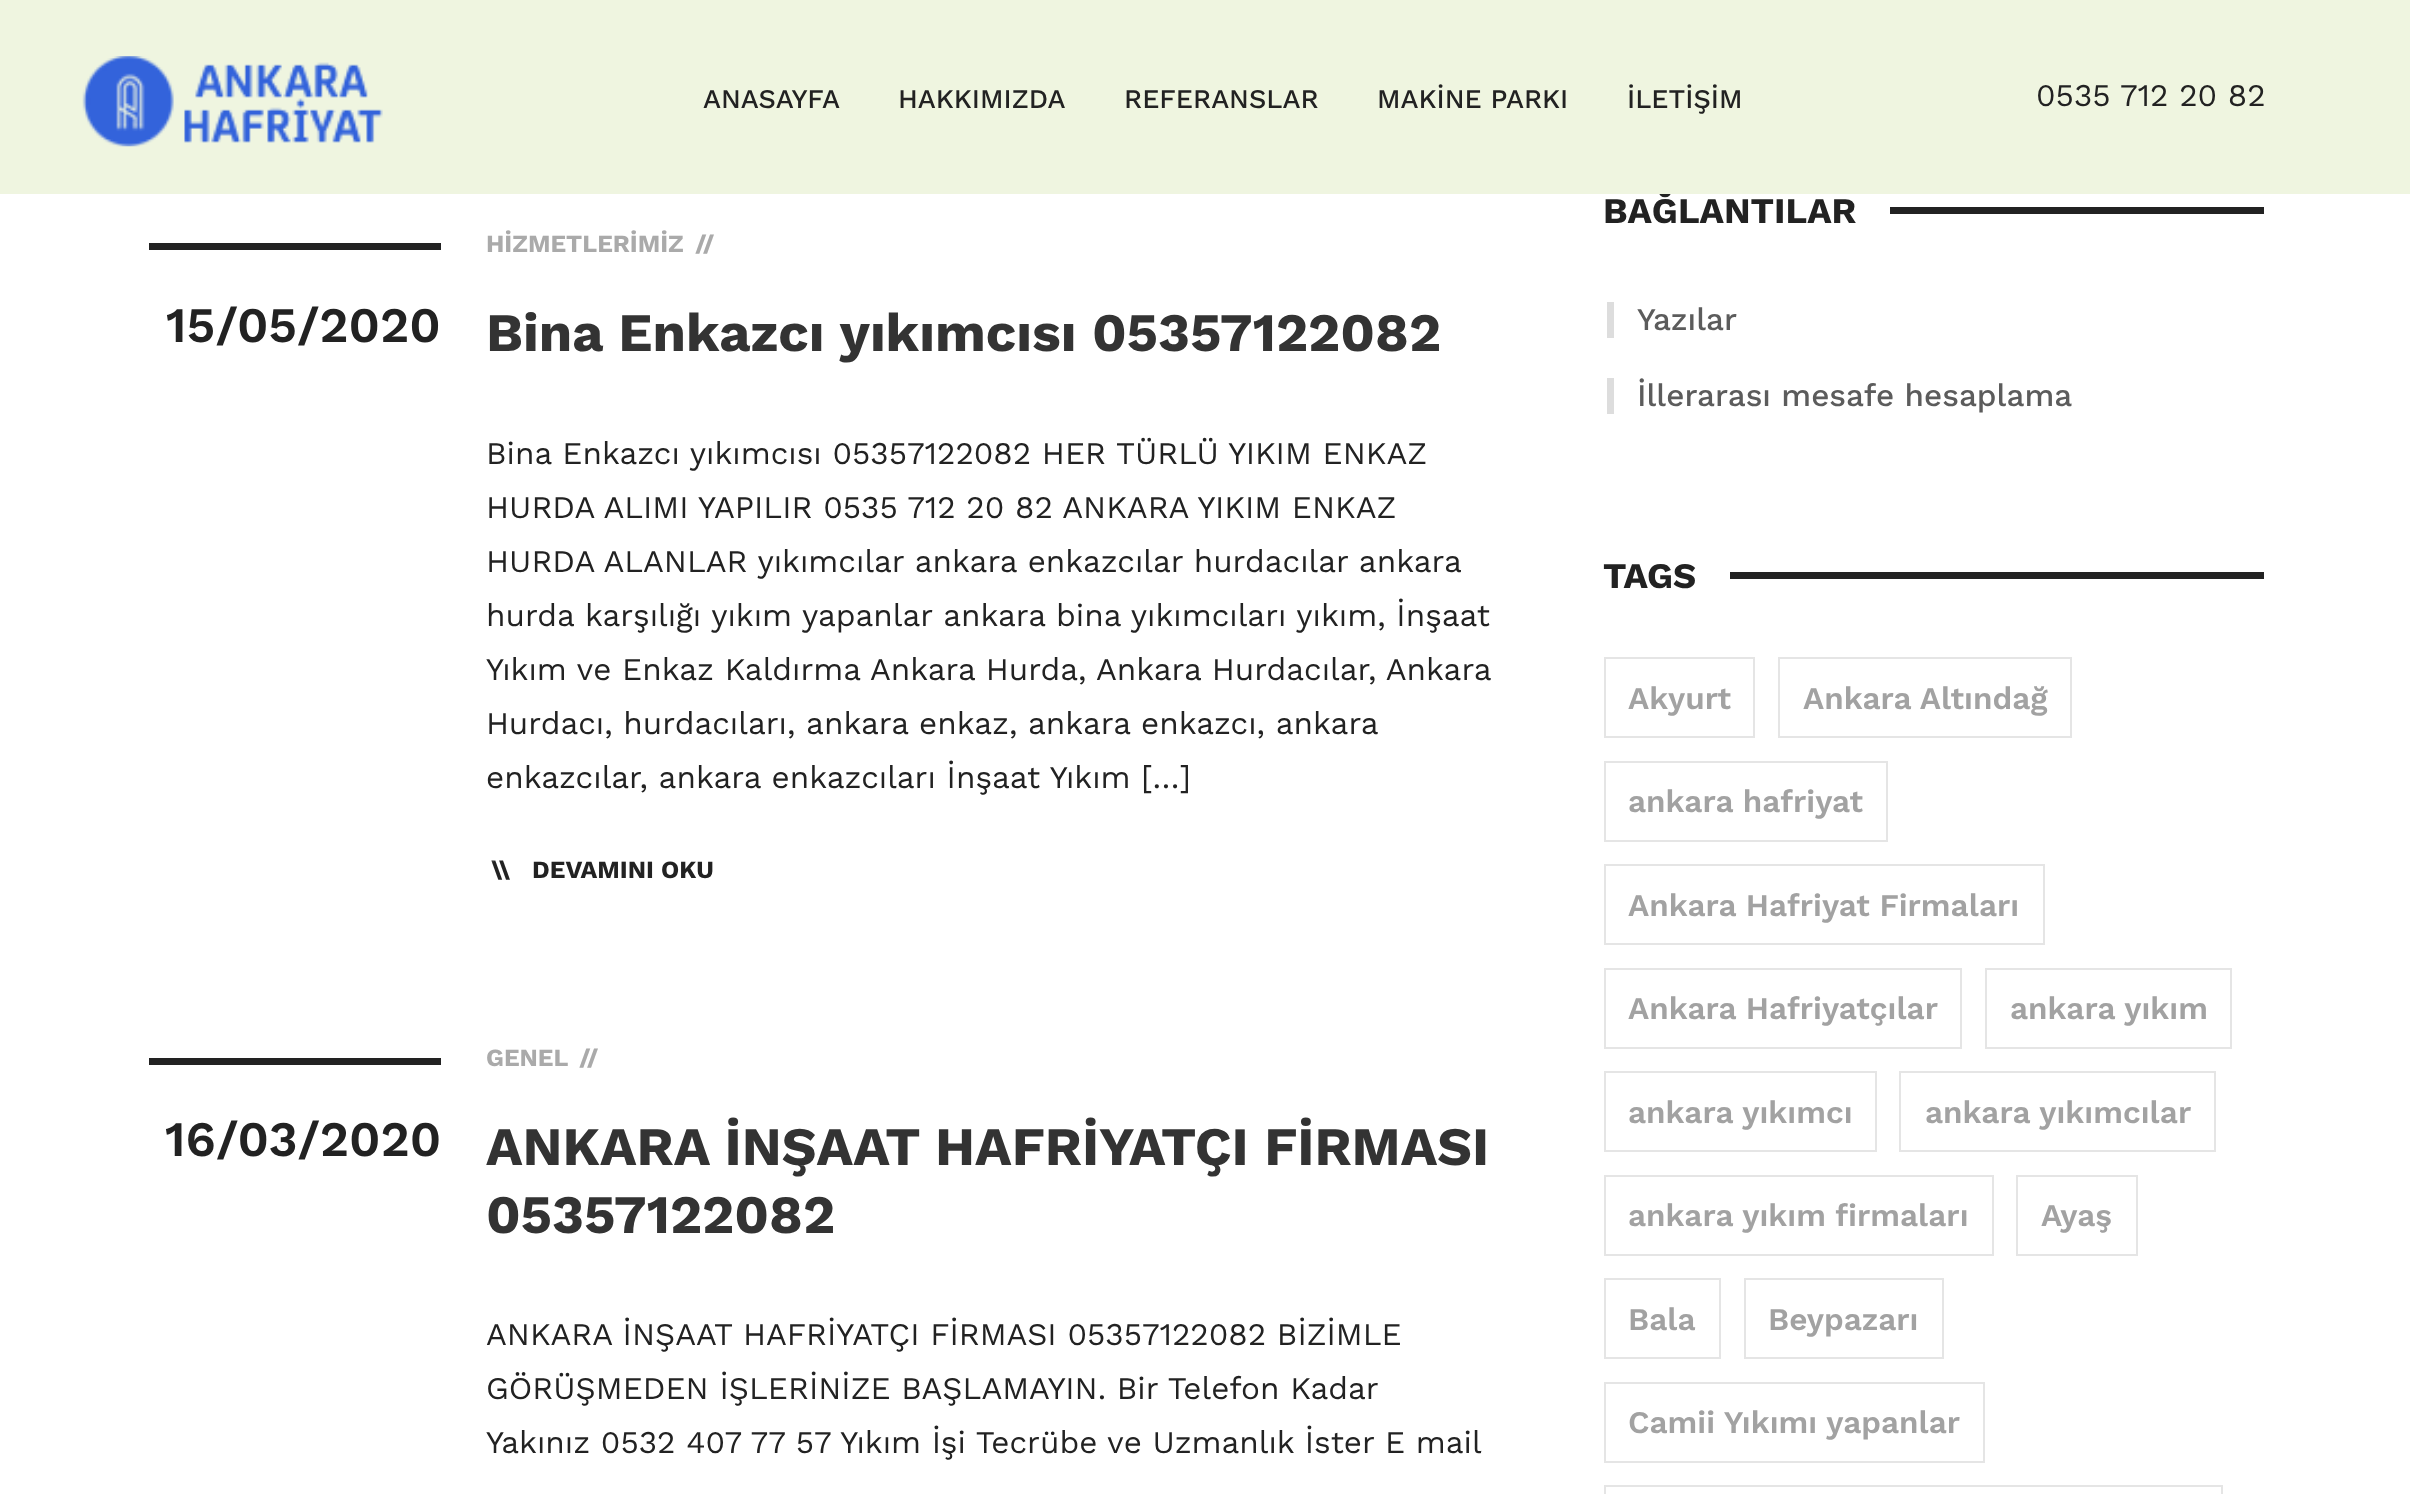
<!DOCTYPE html>
<meta charset="utf-8">
<style>body { margin: 0 } canvas { display: block }</style>
<canvas id="canvas" width="2410" height="1494"></canvas>
<script type="module">
  const canvas = document.getElementById("canvas");
  const g = canvas.getContext("2d");
  g.miterLimit = 4;
  g.fontKerning = "normal";
  function drawText(s, x, y, [font, color]) {
    g.font = font;
    g.fillStyle = color;
    g.fillText(s, x, y);
  }
  function fillBox(x, y, w, h, color) {
    g.fillStyle = color;
    g.fillRect(x, y, w, h);
  }
  async function drawPicture(src, x, y, w, h) {
    const img = new Image();
    img.src = src;
    await img.decode();
    g.drawImage(img, x, y, w, h);
  }

  const s1 = ["bold 36px Work Sans", "#222222"];
  const s2 = ["500 27px Work Sans", "#222222"];
  const s3 = ["31.5px Work Sans", "#222222"];
  const s4 = ["600 49.5px Work Sans", "#222222"];
  const s5 = ["bold 24.75px Work Sans", "#AAAAAA"];
  const s6 = ["bold 54px Work Sans", "#333333"];
  const s7 = ["bold 24.75px Work Sans", "#222222"];
  const s8 = ["500 31.5px Work Sans", "#5C5C5C"];
  const s9 = ["600 31.5px Work Sans", "#A2A2A2"];

  fillBox(0, 0, 2410, 1494, "#FFFFFF");
  drawText("BAĞLANTILAR", 1603, 223, s1);
  fillBox(0, 0, 2410, 194, "#EFF5E0");
  await drawPicture("pic1.png", 82, 56, 301, 91);
  drawText("ANASAYFA", 703, 108, s2);
  drawText("HAKKIMIZDA", 898, 108, s2);
  drawText("REFERANSLAR", 1124, 108, s2);
  drawText("MAKİNE PARKI", 1377, 108, s2);
  drawText("İLETİŞİM", 1627, 108, s2);
  drawText("0535 712 20 82", 2036, 106, s3);
  fillBox(149, 243, 292, 7, "#222222");
  drawText("15/05/2020", 166, 342, s4);
  drawText("HİZMETLERİMİZ", 486, 252, s5);
  drawText("//", 695, 252, s5);
  drawText("Bina Enkazcı yıkımcısı 05357122082", 486, 351, s6);
  drawText("Bina Enkazcı yıkımcısı 05357122082 HER TÜRLÜ YIKIM ENKAZ", 486, 464, s3);
  drawText("HURDA ALIMI YAPILIR 0535 712 20 82 ANKARA YIKIM ENKAZ", 486, 518, s3);
  drawText("HURDA ALANLAR yıkımcılar ankara enkazcılar hurdacılar ankara", 486, 572, s3);
  drawText("hurda karşılığı yıkım yapanlar ankara bina yıkımcıları yıkım, İnşaat", 486, 626, s3);
  drawText("Yıkım ve Enkaz Kaldırma Ankara Hurda, Ankara Hurdacılar, Ankara", 486, 680, s3);
  drawText("Hurdacı, hurdacıları, ankara enkaz, ankara enkazcı, ankara", 486, 734, s3);
  drawText("enkazcılar, ankara enkazcıları İnşaat Yıkım […]", 486, 788, s3);
  drawText("\\\\", 491, 878, s7);
  g.save();
  g.beginPath();
  g.rect(486, 842, 227, 51);
  g.clip();
  g.fillStyle = "#FFFFFF";
  g.beginPath();
  g.moveTo(478.5, 873.5);
  g.lineTo(516, 842);
  g.lineTo(517, 842);
  g.closePath();
  g.fill();
  g.restore();
  drawText("DEVAMINI OKU", 532, 878, s7);
  fillBox(149, 1058, 292, 7, "#222222");
  drawText("16/03/2020", 165, 1156, s4);
  drawText("GENEL", 486, 1066, s5);
  drawText("//", 579, 1066, s5);
  drawText("ANKARA İNŞAAT HAFRİYATÇI FİRMASI", 486, 1165, s6);
  drawText("05357122082", 486, 1233, s6);
  drawText("ANKARA İNŞAAT HAFRİYATÇI FİRMASI 05357122082 BİZİMLE", 486, 1345, s3);
  drawText("GÖRÜŞMEDEN İŞLERİNİZE BAŞLAMAYIN. Bir Telefon Kadar", 486, 1399, s3);
  drawText("Yakınız 0532 407 77 57 Yıkım İşi Tecrübe ve Uzmanlık İster E mail", 486, 1453, s3);
  fillBox(1890, 207, 374, 7, "#222222");
  fillBox(1607, 302, 7, 36, "#DDDDDD");
  drawText("Yazılar", 1637, 330, s8);
  fillBox(1607, 378, 7, 36, "#DDDDDD");
  drawText("İllerarası mesafe hesaplama", 1637, 406, s8);
  drawText("TAGS", 1603, 588, s1);
  fillBox(1730, 572, 534, 7, "#222222");
  g.strokeStyle = "#E5E5E5";
  g.lineWidth = 2;
  g.strokeRect(1605, 658, 149, 79);
  drawText("Akyurt", 1628, 709, s9);
  g.strokeRect(1779, 658, 292, 79);
  drawText("Ankara Altındağ", 1803, 709, s9);
  g.strokeRect(1605, 762, 282, 79);
  drawText("ankara hafriyat", 1628, 812, s9);
  g.strokeRect(1605, 865, 439, 79);
  drawText("Ankara Hafriyat Firmaları", 1628, 916, s9);
  g.strokeRect(1605, 969, 356, 79);
  drawText("Ankara Hafriyatçılar", 1628, 1019, s9);
  g.strokeRect(1986, 969, 245, 79);
  drawText("ankara yıkım", 2010, 1019, s9);
  g.strokeRect(1605, 1072, 271, 79);
  drawText("ankara yıkımcı", 1628, 1123, s9);
  g.strokeRect(1900, 1072, 315, 79);
  drawText("ankara yıkımcılar", 1925, 1123, s9);
  g.strokeRect(1605, 1176, 388, 79);
  drawText("ankara yıkım firmaları", 1628, 1226, s9);
  g.strokeRect(2017, 1176, 120, 79);
  drawText("Ayaş", 2041, 1226, s9);
  g.strokeRect(1605, 1279, 115, 79);
  drawText("Bala", 1628, 1330, s9);
  g.strokeRect(1745, 1279, 198, 79);
  drawText("Beypazarı", 1768, 1330, s9);
  g.strokeRect(1605, 1383, 379, 79);
  drawText("Camii Yıkımı yapanlar", 1628, 1433, s9);
  g.strokeRect(1605, 1486, 617, 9);
</script>
